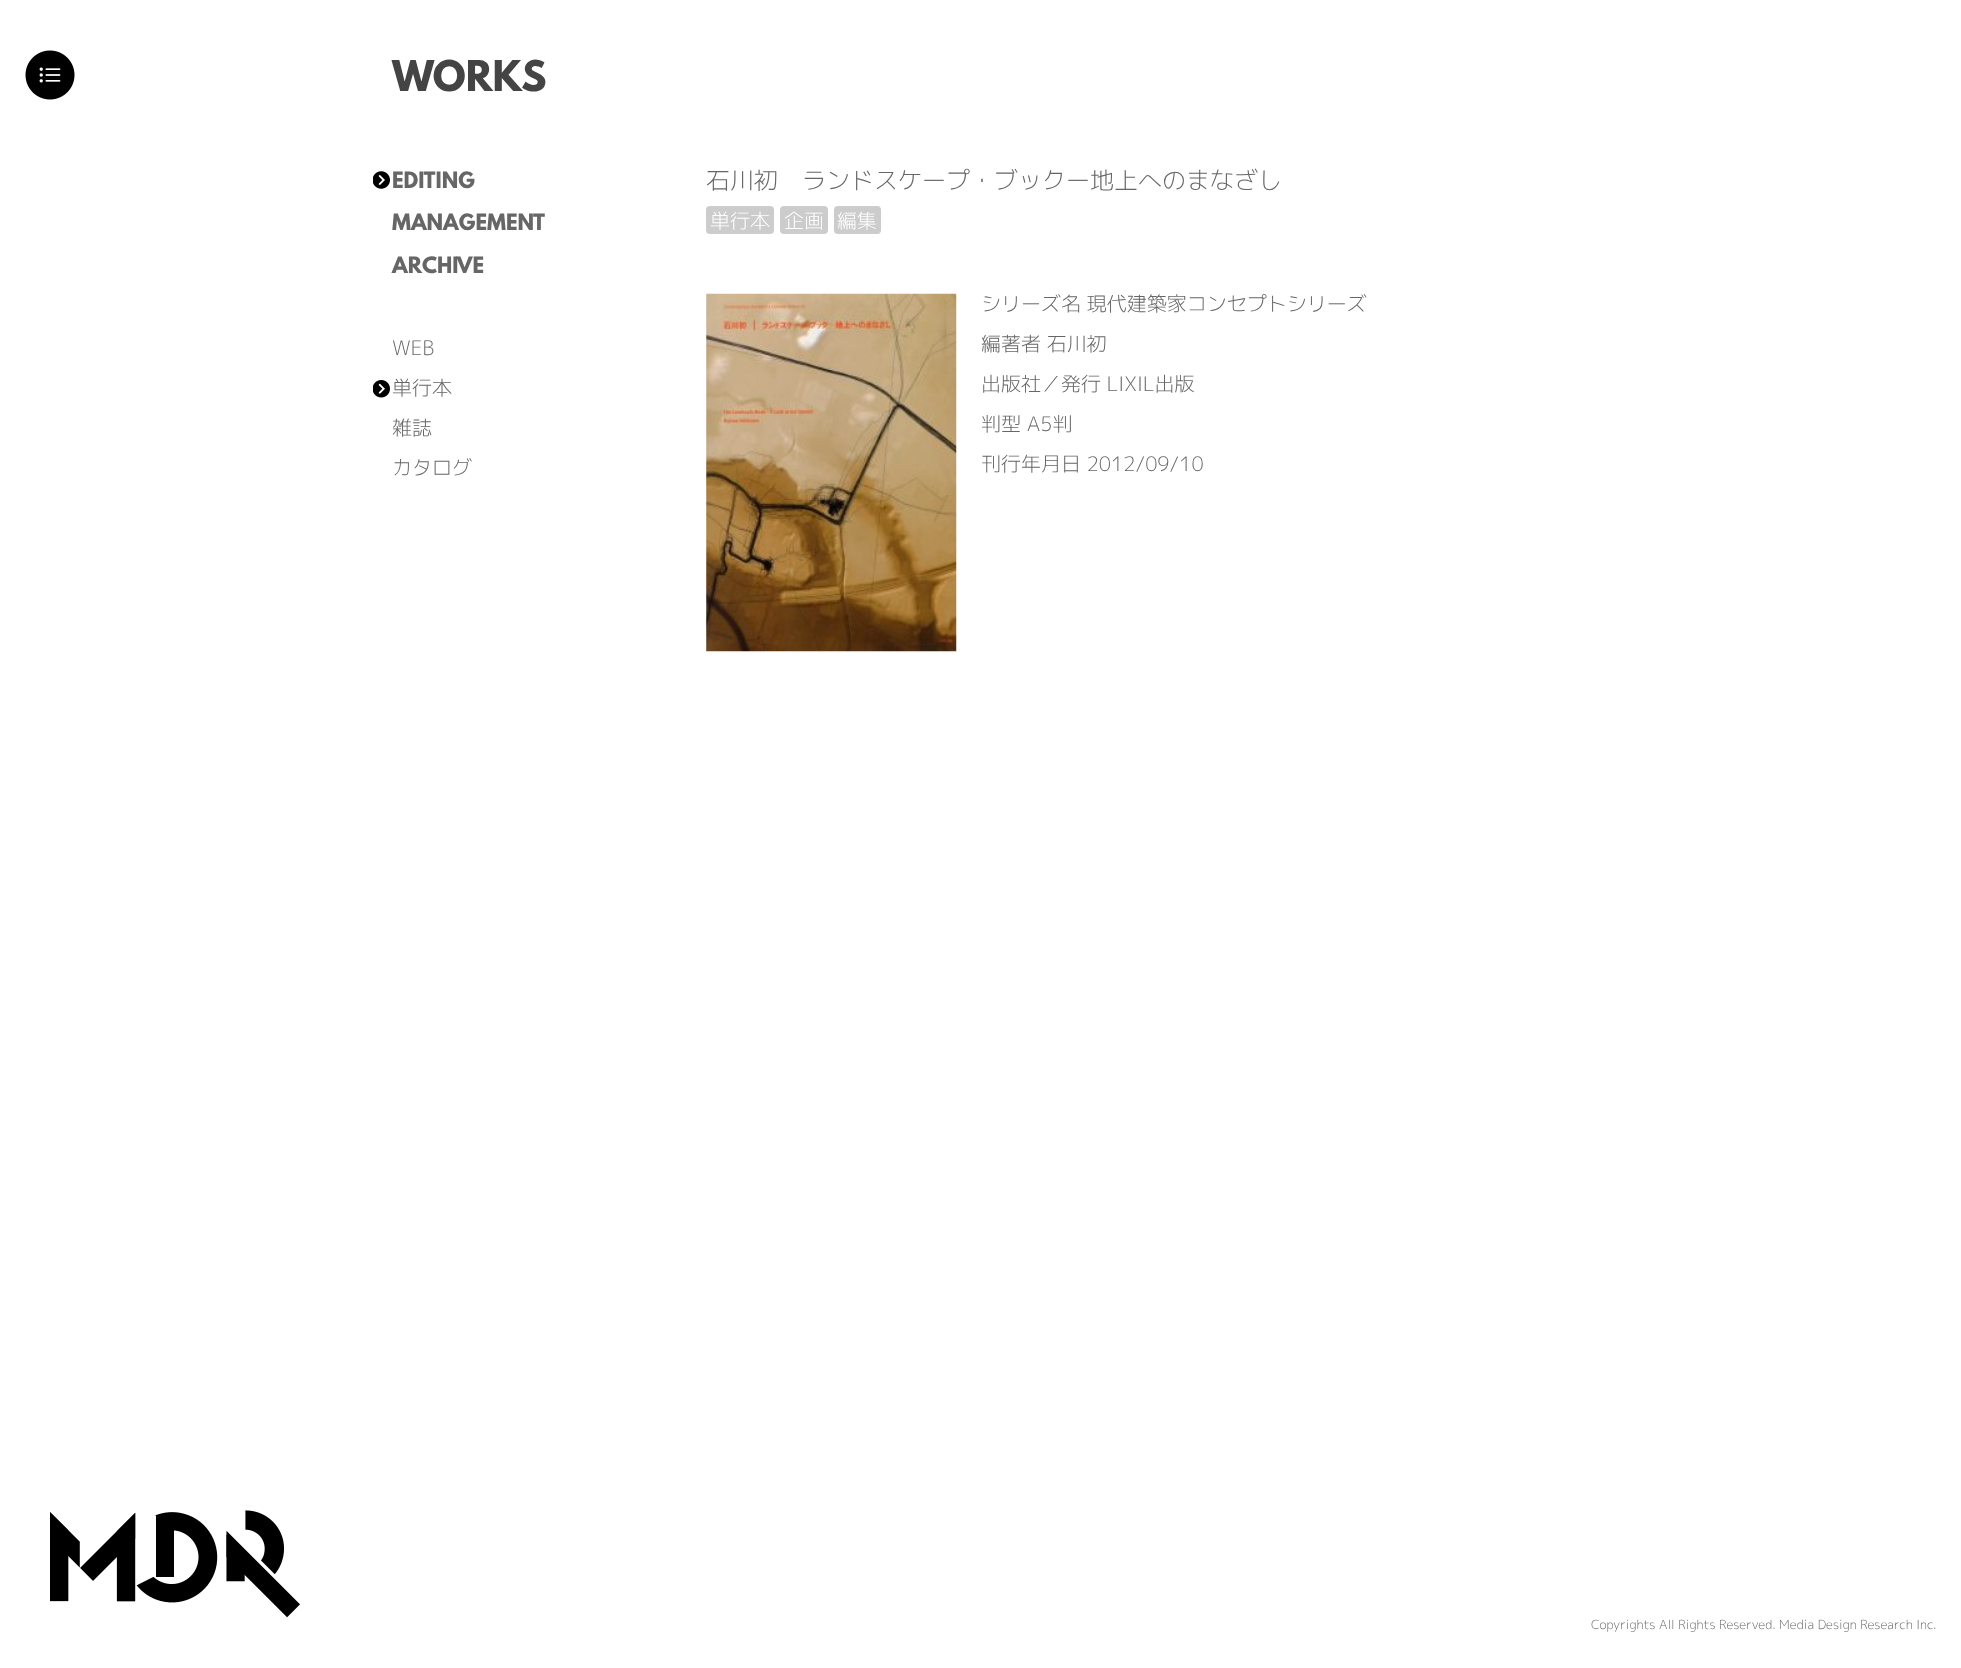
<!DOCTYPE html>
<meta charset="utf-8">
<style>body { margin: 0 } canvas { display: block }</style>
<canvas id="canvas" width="1961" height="1668"></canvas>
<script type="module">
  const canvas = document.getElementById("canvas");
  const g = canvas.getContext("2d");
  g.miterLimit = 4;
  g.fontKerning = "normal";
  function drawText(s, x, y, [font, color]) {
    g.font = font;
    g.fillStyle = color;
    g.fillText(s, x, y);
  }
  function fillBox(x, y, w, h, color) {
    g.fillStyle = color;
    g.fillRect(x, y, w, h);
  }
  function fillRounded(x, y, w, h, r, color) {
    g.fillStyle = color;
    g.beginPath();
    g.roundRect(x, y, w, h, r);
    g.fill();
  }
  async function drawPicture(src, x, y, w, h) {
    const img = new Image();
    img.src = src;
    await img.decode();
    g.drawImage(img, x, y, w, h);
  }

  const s1 = ["bold 37.5px League Spartan", "#444444"];
  const s2 = ["bold 20px League Spartan", "#666666"];
  const s3 = ["300 20px 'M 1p'", "#666666"];
  const s4 = ["300 24px 'M 1p'", "#666666"];
  const s5 = ["300 20px 'M 1p'", "#FFFFFF"];
  const s6 = ["300 12.5px 'M 1p'", "#666666"];

  fillBox(0, 0, 1961, 1668, "#FFFFFF");
  await drawPicture("pic1.png", 25, 50, 50, 50);
  drawText("WORKS", 392, 91, s1);
  await drawPicture("pic2.png", 373, 171, 17, 18);
  drawText("EDITING", 392, 188, s2);
  drawText("MANAGEMENT", 392, 230, s2);
  drawText("ARCHIVE", 392, 273, s2);
  drawText("WEB", 392, 355, s3);
  await drawPicture("pic3.png", 373, 380, 17, 18);
  drawText("単行本", 392, 395, s3);
  drawText("雑誌", 392, 435, s3);
  drawText("カタログ", 392, 475, s3);
  drawText("石川初　ランドスケープ・ブックー地上へのまなざし", 706, 189, s4);
  fillRounded(706, 206, 68, 28, 4, "#CCCCCC");
  drawText("単行本", 710, 228, s5);
  fillRounded(780, 206, 48, 28, 4, "#CCCCCC");
  drawText("企画", 784, 228, s5);
  fillRounded(834, 206, 47, 28, 4, "#CCCCCC");
  drawText("編集", 837, 228, s5);
  await drawPicture("pic4.png", 706, 293, 251, 359);
  drawText("シリーズ名 現代建築家コンセプトシリーズ", 981, 311, s3);
  drawText("編著者 石川初", 981, 351, s3);
  drawText("出版社／発行 LIXIL出版", 981, 391, s3);
  drawText("判型 A5判", 981, 431, s3);
  drawText("刊行年月日 2012/09/10", 981, 471, s3);
  await drawPicture("pic5.png", 50, 1510, 250, 108);
  drawText("Copyrights All Rights Reserved. Media Design Research Inc.", 1591, 1629, s6);
</script>
